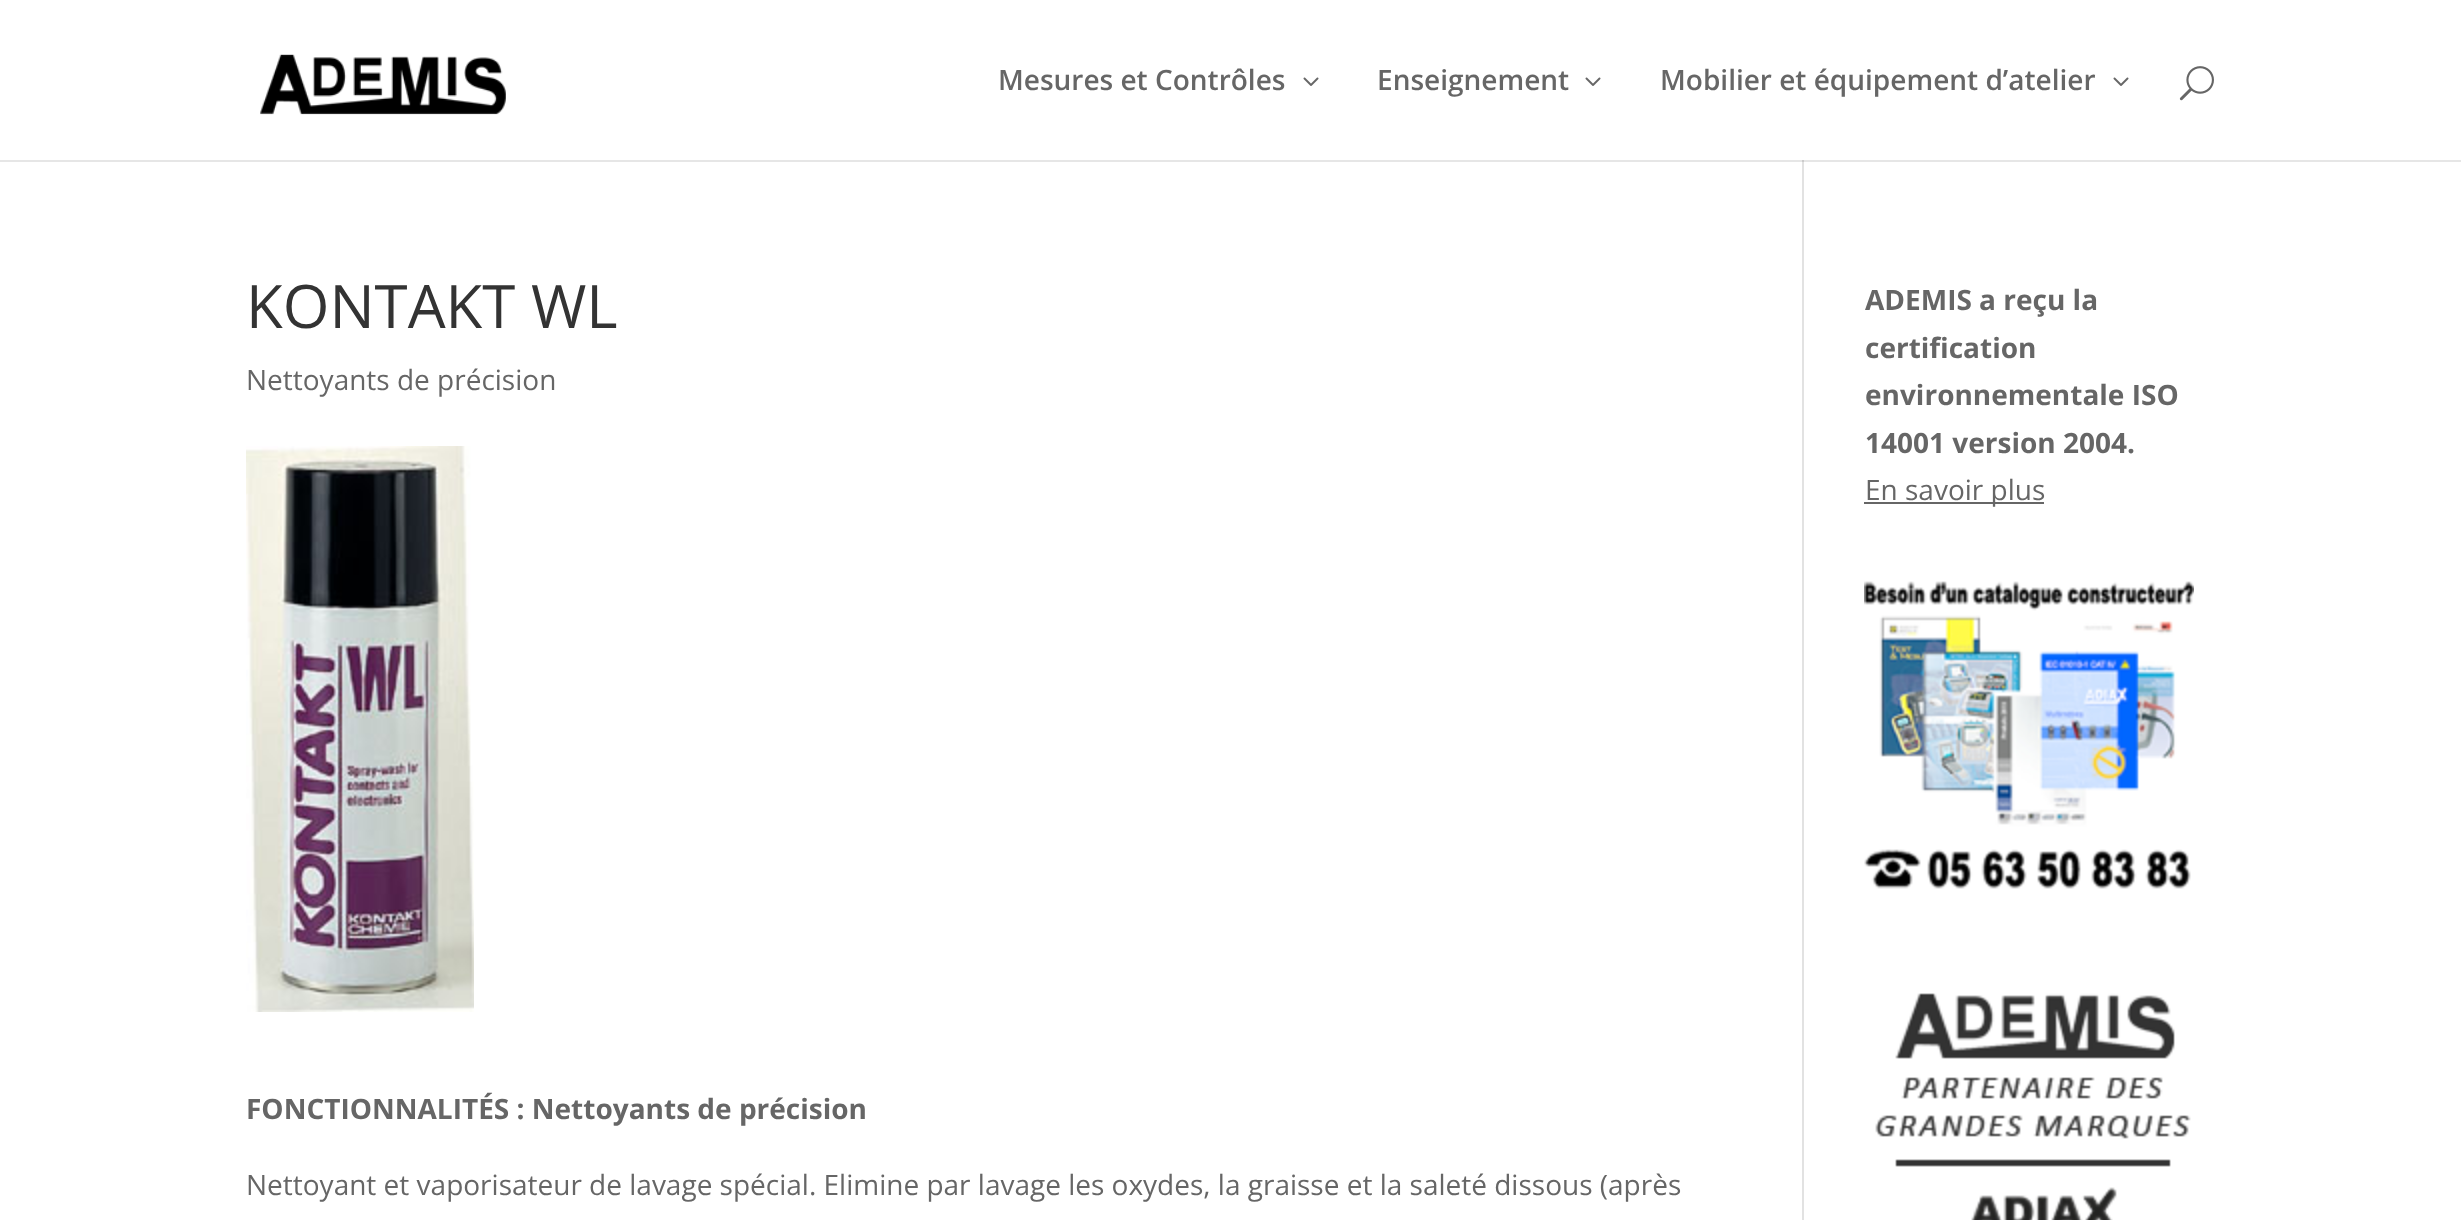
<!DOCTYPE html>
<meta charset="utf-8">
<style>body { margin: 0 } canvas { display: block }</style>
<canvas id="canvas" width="2461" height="1220"></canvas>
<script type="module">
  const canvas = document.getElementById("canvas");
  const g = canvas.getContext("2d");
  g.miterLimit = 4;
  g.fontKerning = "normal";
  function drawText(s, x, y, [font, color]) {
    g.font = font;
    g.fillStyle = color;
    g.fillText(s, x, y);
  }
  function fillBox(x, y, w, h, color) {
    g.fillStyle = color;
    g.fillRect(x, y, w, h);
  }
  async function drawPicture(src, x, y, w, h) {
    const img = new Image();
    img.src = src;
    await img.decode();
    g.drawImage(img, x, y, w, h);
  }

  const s1 = ["600 28px Open Sans", "#666666"];
  const s2 = ["60px Open Sans", "#333333"];
  const s3 = ["28px Open Sans", "#666666"];
  const s4 = ["bold 28px Open Sans", "#666666"];

  fillBox(0, 0, 2461, 1220, "#FFFFFF");
  fillBox(0, 160, 2461, 2, "#E6E6E6");
  await drawPicture("pic1.png", 260, 54, 246, 61);
  drawText("Mesures et Contrôles", 998, 90, s1);
  await drawPicture("pic2.png", 1303, 77, 16, 9);
  drawText("Enseignement", 1377, 90, s1);
  await drawPicture("pic2.png", 1585, 77, 16, 9);
  drawText("Mobilier et équipement d’atelier", 1660, 90, s1);
  await drawPicture("pic2.png", 2113, 77, 16, 9);
  await drawPicture("pic3.png", 2179, 66, 35, 35);
  fillBox(1802, 160, 2, 1060, "#E2E2E2");
  fillBox(1802, 160, 2, 2, "#CBCBCB");
  drawText("KONTAKT WL", 246, 328, s2);
  drawText("Nettoyants de précision", 246, 390, s3);
  await drawPicture("pic4.png", 246, 446, 228, 566);
  drawText("FONCTIONNALITÉS : Nettoyants de précision", 246, 1119, s4);
  drawText("Nettoyant et vaporisateur de lavage spécial. Elimine par lavage les oxydes, la graisse et la saleté dissous (après", 246, 1195, s3);
  drawText("ADEMIS a reçu la", 1865, 310, s4);
  drawText("certification", 1865, 358, s4);
  drawText("environnementale ISO", 1865, 405, s4);
  drawText("14001 version 2004.", 1865, 453, s4);
  fillBox(1864, 502, 180, 2, "#666666");
  drawText("En savoir plus", 1865, 500, s3);
  await drawPicture("pic5.png", 1864, 581, 330, 308);
  await drawPicture("pic6.png", 1875, 993, 316, 227);
</script>
